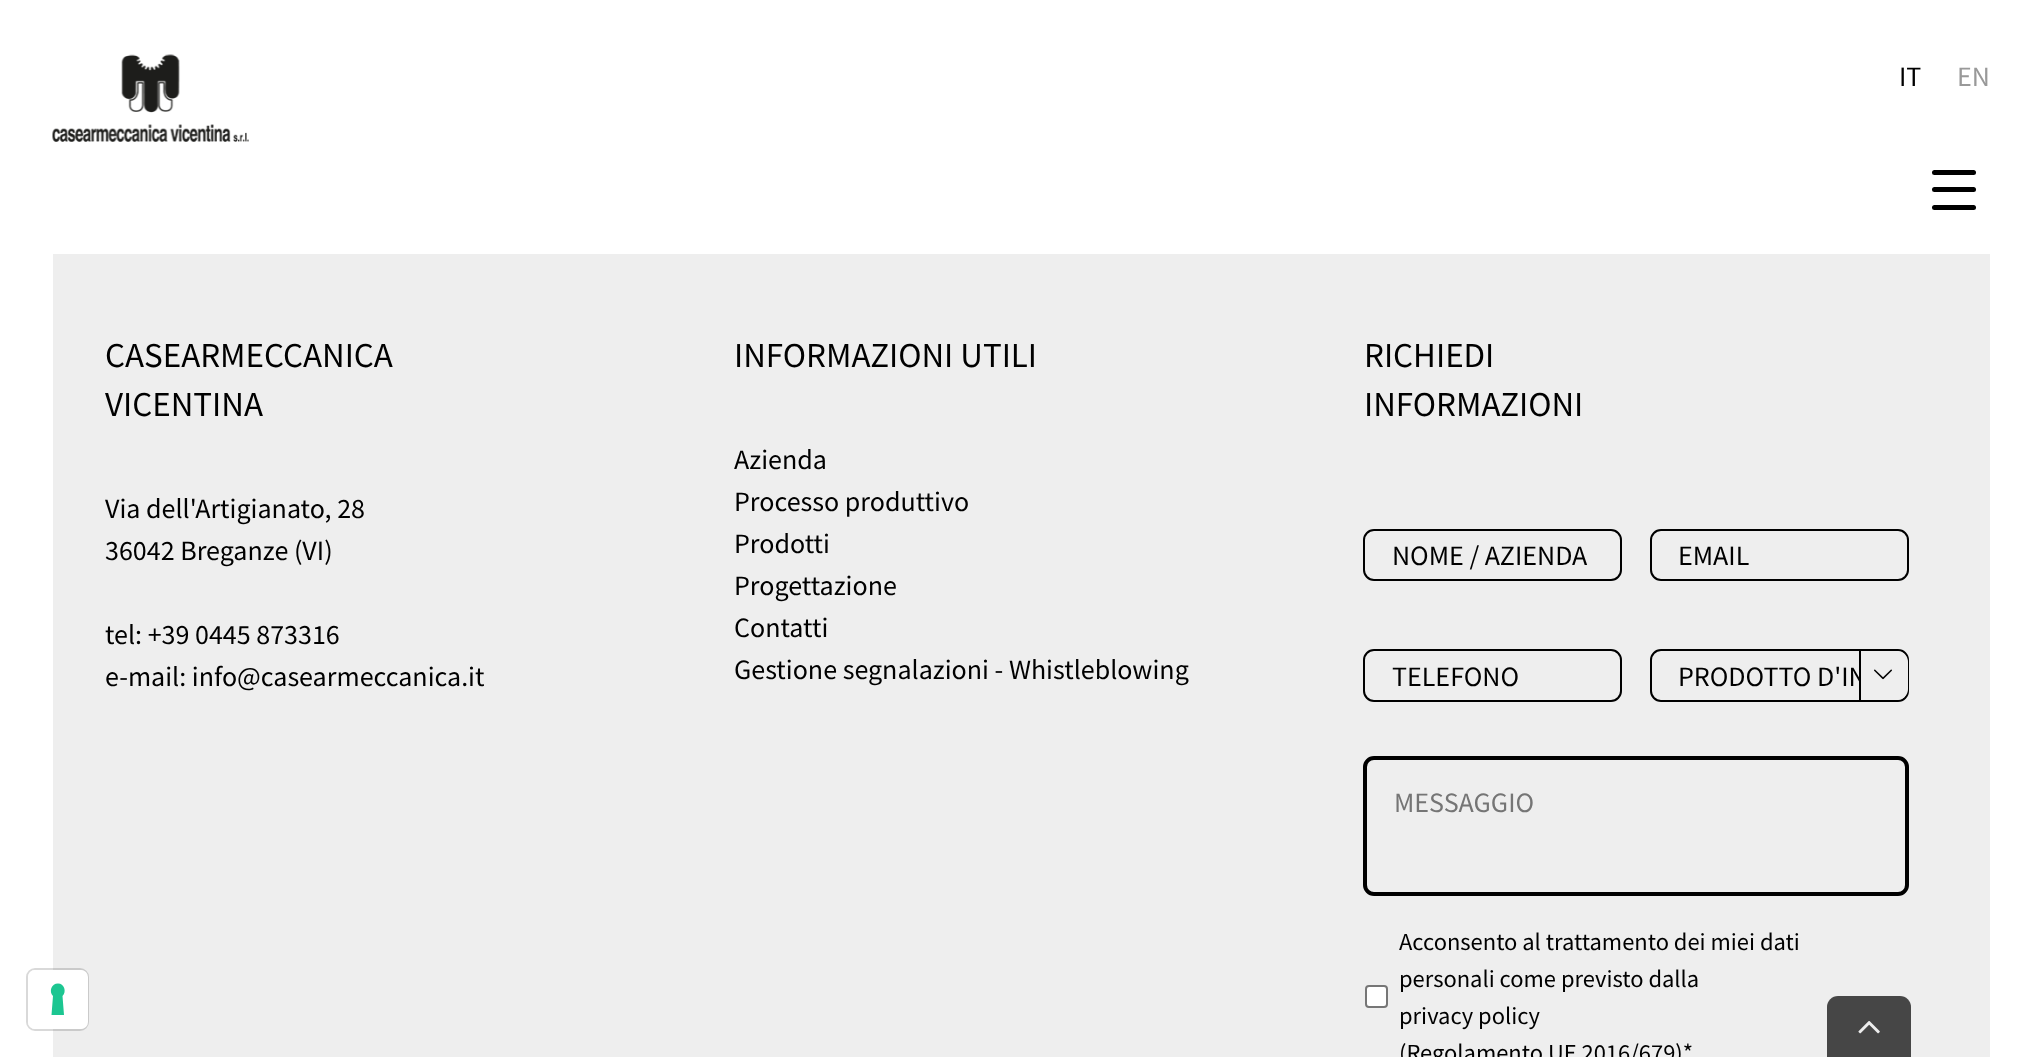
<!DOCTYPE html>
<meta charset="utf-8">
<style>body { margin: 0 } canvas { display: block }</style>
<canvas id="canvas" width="2042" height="1057"></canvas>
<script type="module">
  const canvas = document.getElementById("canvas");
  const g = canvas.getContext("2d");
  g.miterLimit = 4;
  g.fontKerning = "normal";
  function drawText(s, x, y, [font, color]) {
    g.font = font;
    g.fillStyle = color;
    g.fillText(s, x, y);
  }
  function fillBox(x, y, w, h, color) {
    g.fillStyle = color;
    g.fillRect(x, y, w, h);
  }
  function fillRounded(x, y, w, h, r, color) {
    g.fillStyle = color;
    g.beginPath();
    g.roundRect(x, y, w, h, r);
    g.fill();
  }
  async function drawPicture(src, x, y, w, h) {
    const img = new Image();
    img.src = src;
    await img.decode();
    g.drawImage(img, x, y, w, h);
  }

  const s1 = ["28px Source Sans Pro", "#000000"];
  const s2 = ["28px Source Sans Pro", "#999999"];
  const s3 = ["35px Source Sans Pro", "#000000"];
  const s4 = ["28px Source Sans Pro", "#757575"];
  const s5 = ["24.5px Source Sans Pro", "#000000"];

  fillBox(0, 0, 2042, 1057, "#FFFFFF");
  fillBox(53, 254, 1937, 803, "#EEEEEE");
  g.beginPath();
  g.roundRect(27, 969, 61, 61, 8);
  g.strokeStyle = "rgba(0, 0, 0, 0.15)";
  g.lineWidth = 2;
  g.stroke();
  fillRounded(28, 970, 60, 59, 7, "#FFFFFF");
  g.fillStyle = "#1CC691";
  g.beginPath();
  g.moveTo(58, 983.5);
  g.bezierCurveTo(64, 983.5, 67, 991.5, 62.5, 996);
  g.lineTo(64, 1015);
  g.lineTo(51.5, 1015);
  g.lineTo(53, 996);
  g.bezierCurveTo(48.5, 991.5, 51.5, 983.5, 58, 983.5);
  g.closePath();
  g.fill("evenodd");
  await drawPicture("pic1.png", 52, 54, 197, 88);
  drawText("IT", 1899, 86, s1);
  drawText("EN", 1957, 86, s2);
  drawText("CASEARMECCANICA", 105, 367, s3);
  drawText("VICENTINA", 105, 416, s3);
  drawText("Via dell'Artigianato, 28", 105, 518, s1);
  drawText("36042 Breganze (VI)", 105, 560, s1);
  drawText("tel: +39 0445 873316", 105, 644, s1);
  drawText("e-mail: info@casearmeccanica.it", 105, 686, s1);
  drawText("INFORMAZIONI UTILI", 734, 367, s3);
  drawText("Azienda", 734, 469, s1);
  drawText("Processo produttivo", 734, 511, s1);
  drawText("Prodotti", 734, 553, s1);
  drawText("Progettazione", 734, 595, s1);
  drawText("Contatti", 734, 637, s1);
  drawText("Gestione segnalazioni - Whistleblowing", 734, 679, s1);
  drawText("RICHIEDI", 1364, 367, s3);
  drawText("INFORMAZIONI", 1364, 416, s3);
  g.beginPath();
  g.roundRect(1364, 530, 257, 50, 10);
  g.strokeStyle = "#000000";
  g.stroke();
  drawText("NOME / AZIENDA", 1392, 565, s1);
  g.beginPath();
  g.roundRect(1651, 530, 257, 50, 10);
  g.stroke();
  drawText("EMAIL", 1678, 565, s1);
  g.beginPath();
  g.roundRect(1364, 650, 257, 51, 10);
  g.stroke();
  drawText("TELEFONO", 1392, 686, s1);
  g.beginPath();
  g.roundRect(1651, 650, 257, 51, 10);
  g.stroke();
  drawText("PRODOTTO D'IN", 1678, 686, s1);
  g.fillStyle = "#EEEEEE";
  g.beginPath();
  g.roundRect(1859, 651, 49, 49, [0, 11, 11, 0]);
  g.fill();
  fillBox(1859, 651, 2, 49, "#000000");
  await drawPicture("pic2.png", 1874, 669, 18, 11);
  g.beginPath();
  g.roundRect(1365, 758, 542, 136, 9);
  g.lineWidth = 4;
  g.stroke();
  drawText("MESSAGGIO", 1394, 812, s4);
  g.fillStyle = "#FFFFFF";
  g.beginPath();
  g.roundRect(1366, 986, 21, 21, 3);
  g.fill();
  g.strokeStyle = "#767676";
  g.lineWidth = 2;
  g.stroke();
  drawText("Acconsento al trattamento dei miei dati", 1399, 950, s5);
  drawText("personali come previsto dalla", 1399, 987, s5);
  drawText("privacy policy", 1399, 1024, s5);
  drawText("(Regolamento UE 2016/679)*", 1399, 1061, s5);
  fillRounded(1932, 187, 44, 5, 2.5, "#000000");
  fillRounded(1932, 170, 44, 5, 2.5, "#000000");
  fillRounded(1932, 205, 44, 5, 2.5, "#000000");
  g.fillStyle = "#464646";
  g.beginPath();
  g.roundRect(1827, 996, 84, 61, [11, 11, 0, 0]);
  g.fill();
  await drawPicture("pic3.png", 1858, 1021, 22, 13);
</script>
